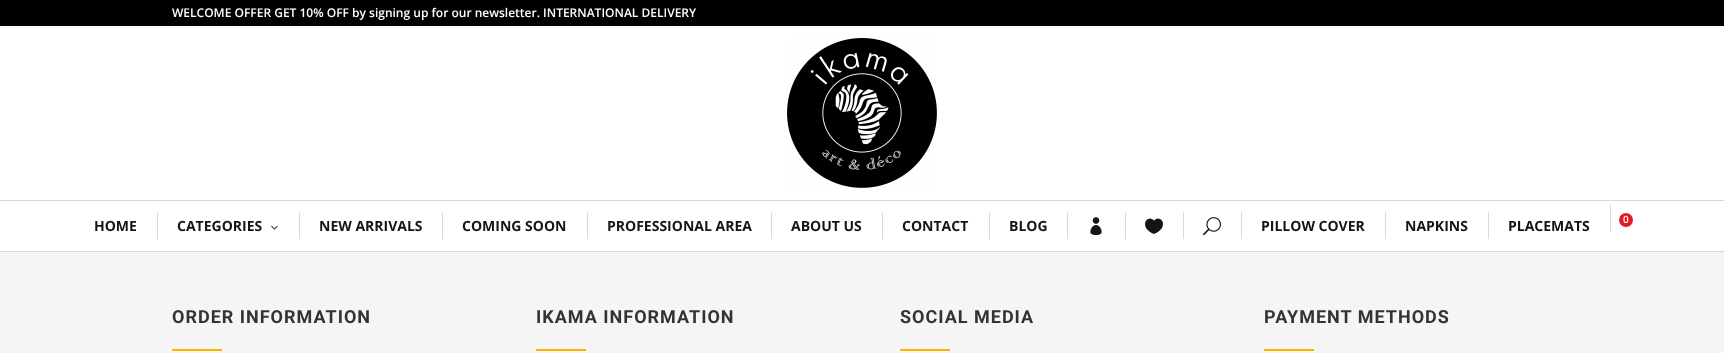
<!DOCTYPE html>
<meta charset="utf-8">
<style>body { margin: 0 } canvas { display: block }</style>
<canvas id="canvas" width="1724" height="353"></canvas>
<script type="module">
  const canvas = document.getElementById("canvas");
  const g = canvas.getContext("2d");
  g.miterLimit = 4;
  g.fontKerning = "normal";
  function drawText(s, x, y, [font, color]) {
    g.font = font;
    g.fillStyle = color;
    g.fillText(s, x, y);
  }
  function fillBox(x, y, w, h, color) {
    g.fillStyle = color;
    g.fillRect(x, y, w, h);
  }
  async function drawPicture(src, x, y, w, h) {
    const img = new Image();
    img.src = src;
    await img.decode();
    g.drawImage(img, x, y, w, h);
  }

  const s1 = ["600 12px Open Sans", "#FFFFFF"];
  const s2 = ["bold 14px Open Sans", "#151515"];
  const s3 = ["600 10px Open Sans", "#FFFFFF"];
  const s4 = ["bold 18px Roboto", "#333333"];

  fillBox(0, 0, 1724, 353, "#FFFFFF");
  fillBox(0, 0, 1724, 26, "#000000");
  drawText("WELCOME OFFER GET 10% OFF by signing up for our newsletter. INTERNATIONAL DELIVERY", 172, 17, s1);
  await drawPicture("pic1.png", 787, 38, 150, 150);
  fillBox(0, 200, 1724, 1, "#D9D9D9");
  fillBox(0, 251, 1724, 1, "#D9D9D9");
  drawText("HOME", 94, 231, s2);
  fillBox(157, 212, 1, 27, "#D9D9D9");
  drawText("CATEGORIES", 177, 231, s2);
  await drawPicture("pic2.png", 271, 225, 7, 5);
  fillBox(299, 212, 1, 27, "#D9D9D9");
  drawText("NEW ARRIVALS", 319, 231, s2);
  fillBox(442, 212, 1, 27, "#D9D9D9");
  drawText("COMING SOON", 462, 231, s2);
  fillBox(587, 212, 1, 27, "#D9D9D9");
  drawText("PROFESSIONAL AREA", 607, 231, s2);
  fillBox(771, 212, 1, 27, "#D9D9D9");
  drawText("ABOUT US", 791, 231, s2);
  fillBox(882, 212, 1, 27, "#D9D9D9");
  drawText("CONTACT", 902, 231, s2);
  fillBox(989, 212, 1, 27, "#D9D9D9");
  drawText("BLOG", 1009, 231, s2);
  fillBox(1067, 212, 1, 27, "#D9D9D9");
  await drawPicture("pic3.png", 1090, 217, 12, 19);
  fillBox(1125, 212, 1, 27, "#D9D9D9");
  await drawPicture("pic4.png", 1145, 218, 18, 16);
  fillBox(1183, 212, 1, 27, "#D9D9D9");
  await drawPicture("pic5.png", 1203, 217, 18, 19);
  fillBox(1241, 212, 1, 27, "#D9D9D9");
  drawText("PILLOW COVER", 1261, 231, s2);
  fillBox(1385, 212, 1, 27, "#D9D9D9");
  drawText("NAPKINS", 1405, 231, s2);
  fillBox(1488, 212, 1, 27, "#D9D9D9");
  drawText("PLACEMATS", 1508, 231, s2);
  fillBox(1610, 205, 1, 27, "#D9D9D9");
  g.fillStyle = "#E51B23";
  g.beginPath();
  g.arc(1626, 220, 7, 0, Math.PI * 2);
  g.fill();
  drawText("0", 1623, 223, s3);
  fillBox(0, 252, 1724, 101, "#F5F5F5");
  g.letterSpacing = "1px";
  drawText("ORDER INFORMATION", 172, 323, s4);
  fillBox(172, 349, 50, 2, "#FFB500");
  drawText("IKAMA INFORMATION", 536, 323, s4);
  fillBox(536, 349, 50, 2, "#FFB500");
  drawText("SOCIAL MEDIA", 900, 323, s4);
  fillBox(900, 349, 50, 2, "#FFB500");
  drawText("PAYMENT METHODS", 1264, 323, s4);
  fillBox(1264, 349, 50, 2, "#FFB500");
</script>
